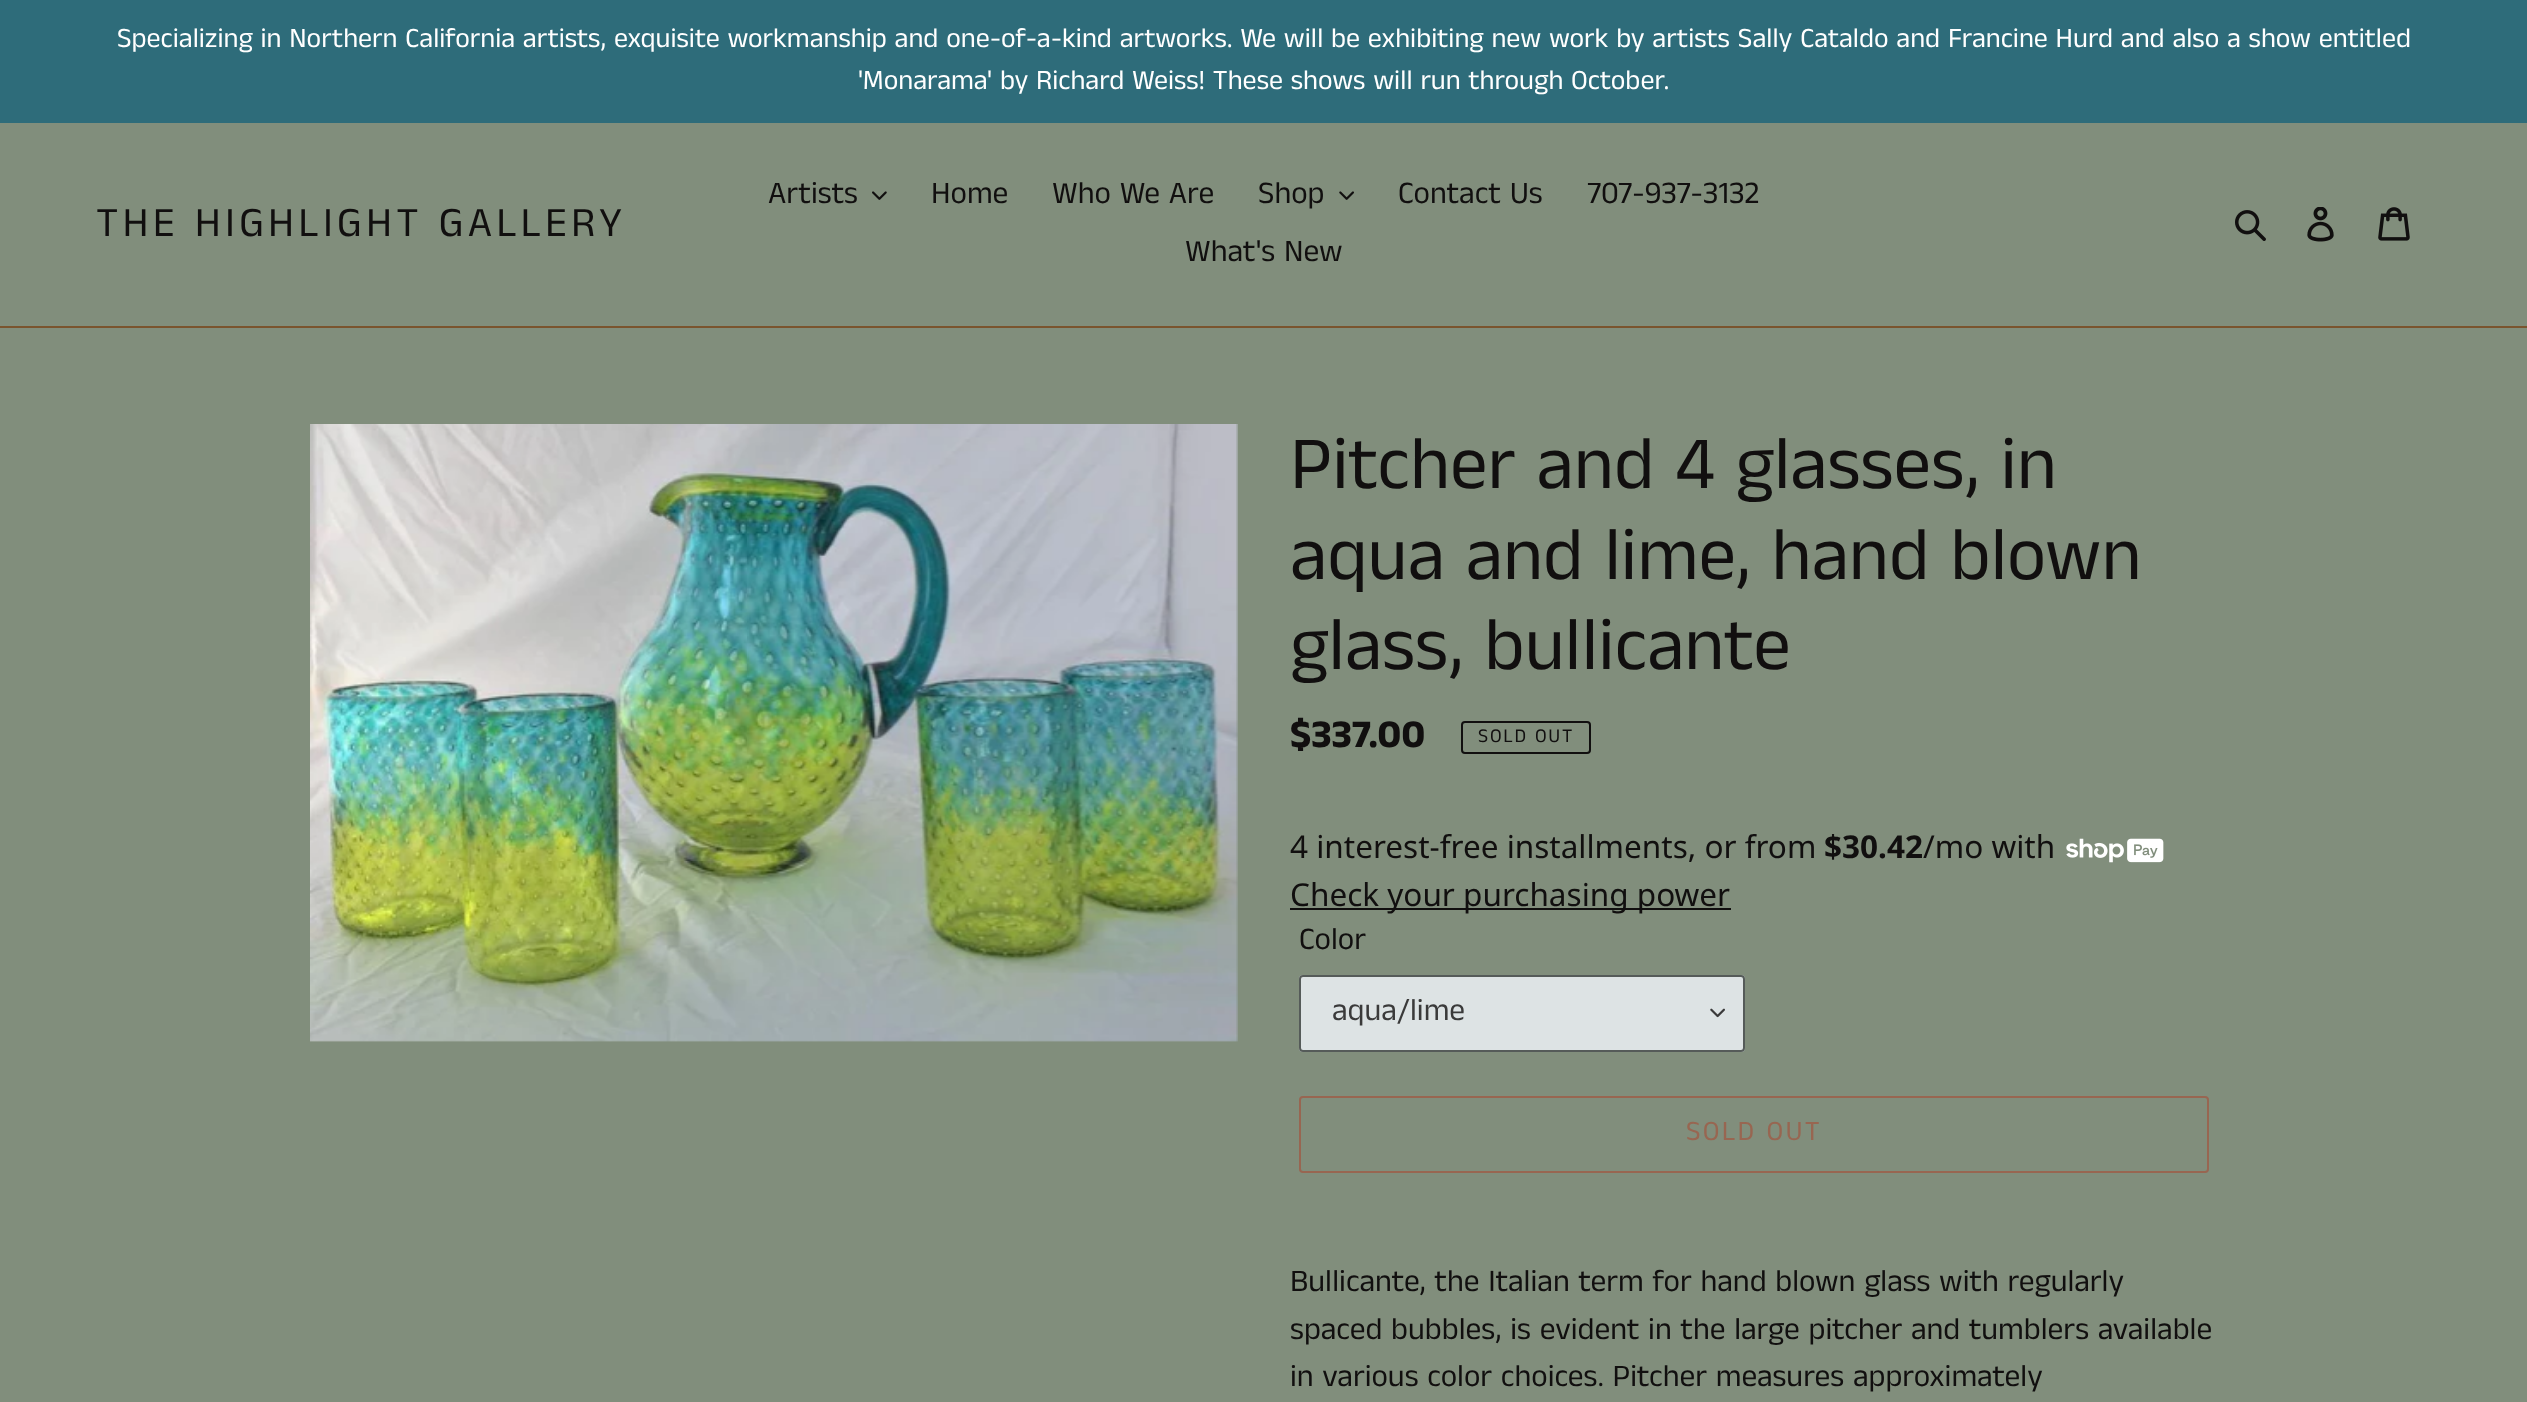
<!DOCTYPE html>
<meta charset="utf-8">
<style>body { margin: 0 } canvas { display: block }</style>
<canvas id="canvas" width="2527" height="1402"></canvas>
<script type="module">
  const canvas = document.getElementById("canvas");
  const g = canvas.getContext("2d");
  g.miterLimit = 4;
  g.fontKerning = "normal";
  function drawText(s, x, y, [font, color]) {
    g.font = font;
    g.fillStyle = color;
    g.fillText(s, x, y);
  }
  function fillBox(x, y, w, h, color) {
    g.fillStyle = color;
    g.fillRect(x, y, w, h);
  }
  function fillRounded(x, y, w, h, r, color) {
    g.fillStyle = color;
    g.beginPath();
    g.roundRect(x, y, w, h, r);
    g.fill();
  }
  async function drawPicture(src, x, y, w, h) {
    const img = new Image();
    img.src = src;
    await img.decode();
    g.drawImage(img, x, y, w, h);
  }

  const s1 = ["28px Anek Tamil", "#FFFFFF"];
  const s2 = ["42px Anek Tamil", "#110F0F"];
  const s3 = ["31.5px Anek Tamil", "#110F0F"];
  const s4 = ["75.25px Anek Tamil", "#110F0F"];
  const s5 = ["bold 39.5px Anek Tamil", "#110F0F"];
  const s6 = ["19.5px Anek Tamil", "#110F0F"];
  const s7 = ["31.5px Noto Sans", "#110F0F"];
  const s8 = ["bold 31.5px Noto Sans", "#110F0F"];
  const s9 = ["31.5px Anek Tamil", "#3A3A3A"];
  const s10 = ["28px Anek Tamil", "#986651"];

  fillBox(0, 0, 2527, 1402, "#818E7C");
  fillBox(0, 0, 2527, 123, "#2E6C7A");
  drawText("Specializing in Northern California artists, exquisite workmanship and one-of-a-kind artworks. We will be exhibiting new work by artists Sally Cataldo and Francine Hurd and also a show entitled", 117, 47, s1);
  drawText("'Monarama' by Richard Weiss! These shows will run through October.", 858, 89, s1);
  fillBox(0, 326, 2527, 2, "#7A542E");
  g.letterSpacing = "4.2px";
  drawText("THE HIGHLIGHT GALLERY", 96, 236, s2);
  g.letterSpacing = "0px";
  drawText("Artists", 768, 203, s3);
  await drawPicture("pic1.png", 872, 191, 15, 9);
  drawText("Home", 931, 203, s3);
  drawText("Who We Are", 1052, 203, s3);
  drawText("Shop", 1258, 203, s3);
  await drawPicture("pic2.png", 1339, 191, 15, 9);
  drawText("Contact Us", 1398, 203, s3);
  drawText("707-937-3132", 1587, 203, s3);
  drawText("What's New", 1185, 261, s3);
  await drawPicture("pic3.png", 2235, 210, 31, 31);
  await drawPicture("pic4.png", 2307, 207, 27, 35);
  await drawPicture("pic5.png", 2378, 207, 32, 34);
  await drawPicture("pic6.png", 310, 424, 928, 618);
  drawText("Pitcher and 4 glasses, in", 1290, 488, s4);
  drawText("aqua and lime, hand blown", 1290, 579, s4);
  drawText("glass, bullicante", 1290, 669, s4);
  drawText("$337.00", 1290, 747, s5);
  g.beginPath();
  g.roundRect(1462, 722, 128, 31, 3);
  g.strokeStyle = "#110F0F";
  g.lineWidth = 2;
  g.stroke();
  g.letterSpacing = "1.75px";
  drawText("SOLD OUT", 1478, 742, s6);
  g.letterSpacing = "0px";
  drawText("4 interest-free installments, or from", 1290, 858, s7);
  drawText("$30.42", 1824, 858, s8);
  drawText("/mo with", 1923, 858, s7);
  await drawPicture("pic7.png", 2066, 838, 98, 25);
  fillBox(1290, 908, 441, 2, "#110F0F");
  drawText("Check your purchasing power", 1290, 906, s7);
  drawText("Color", 1299, 949, s3);
  fillRounded(1299, 975, 446, 77, 4, "#DDE3E4");
  await drawPicture("pic8.png", 1710, 1008, 15, 10);
  g.beginPath();
  g.roundRect(1300, 976, 444, 75, 3);
  g.strokeStyle = "#555B59";
  g.stroke();
  drawText("aqua/lime", 1332, 1020, s9);
  g.beginPath();
  g.roundRect(1300, 1097, 908, 75, 3);
  g.strokeStyle = "#986651";
  g.stroke();
  g.letterSpacing = "2.25px";
  drawText("SOLD OUT", 1686, 1140, s10);
  g.letterSpacing = "0px";
  drawText("Bullicante, the Italian term for hand blown glass with regularly", 1290, 1291, s3);
  drawText("spaced bubbles, is evident in the large pitcher and tumblers available", 1290, 1339, s3);
  drawText("in various color choices. Pitcher measures approximately", 1290, 1386, s3);
</script>
